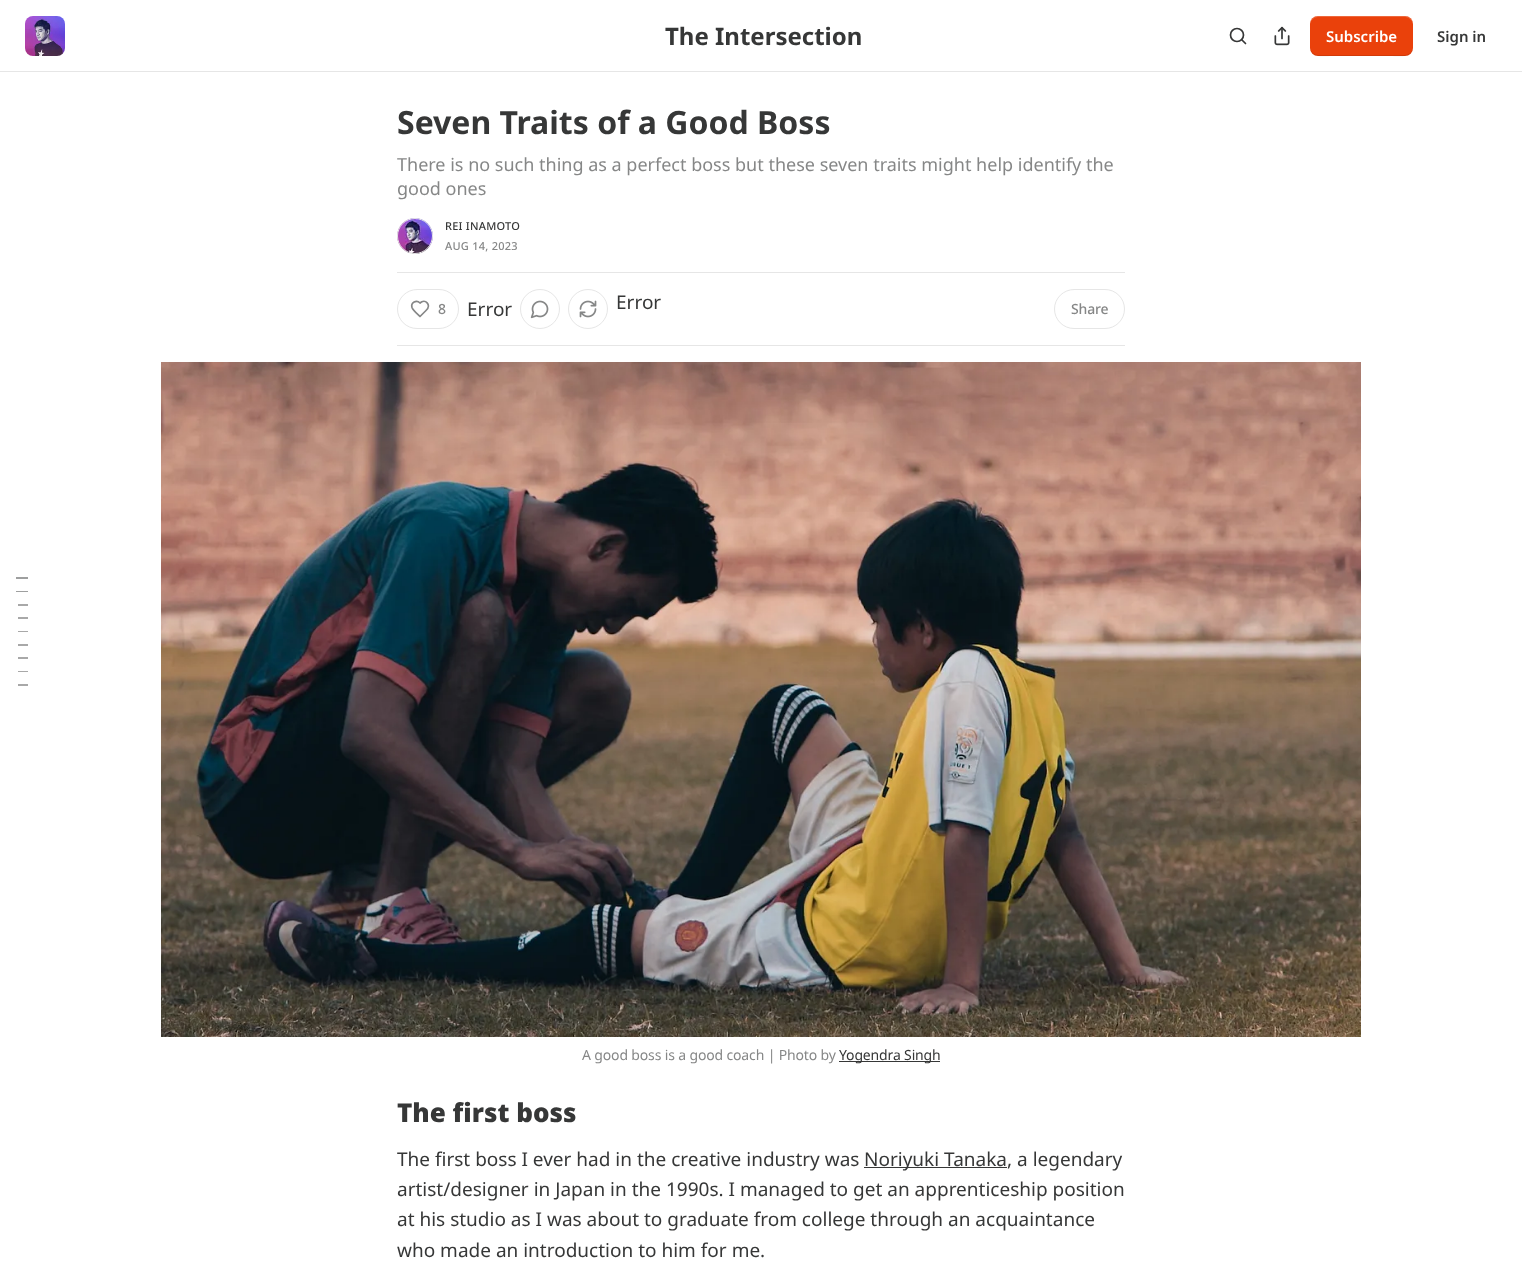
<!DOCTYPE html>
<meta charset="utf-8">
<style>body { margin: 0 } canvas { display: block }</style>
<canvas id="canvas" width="1522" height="1263"></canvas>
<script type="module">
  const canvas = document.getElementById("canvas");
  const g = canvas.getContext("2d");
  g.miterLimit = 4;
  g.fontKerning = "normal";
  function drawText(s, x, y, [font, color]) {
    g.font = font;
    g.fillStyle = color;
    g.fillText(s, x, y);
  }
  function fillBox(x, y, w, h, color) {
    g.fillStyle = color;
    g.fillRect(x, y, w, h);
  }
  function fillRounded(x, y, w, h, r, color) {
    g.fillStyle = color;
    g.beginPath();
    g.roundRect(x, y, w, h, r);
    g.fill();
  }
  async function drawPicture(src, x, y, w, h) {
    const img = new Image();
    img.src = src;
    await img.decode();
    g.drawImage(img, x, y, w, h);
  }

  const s1 = ["bold 24px Noto Sans", "#363737"];
  const s2 = ["600 15px Noto Sans", "#FFFFFF"];
  const s3 = ["600 15px Noto Sans", "#363737"];
  const s4 = ["bold 32px Noto Sans", "#363737"];
  const s5 = ["18px Noto Sans", "#868787"];
  const s6 = ["500 11px Noto Sans", "#363737"];
  const s7 = ["500 11px Noto Sans", "#868787"];
  const s8 = ["500 14px Noto Sans", "#868787"];
  const s9 = ["19px Noto Sans", "#363737"];
  const s10 = ["14px Noto Sans", "#868787"];
  const s11 = ["14px Noto Sans", "#363737"];
  const s12 = ["900 26px Noto Sans", "#363737"];

  fillBox(0, 0, 1522, 1263, "#FFFFFF");
  fillBox(0, 71, 1522, 1, "#E6E6E6");
  await drawPicture("pic1.png", 25, 16, 40, 40);
  drawText("The Intersection", 665, 45, s1);
  g.beginPath();
  g.arc(1237, 35, 6.5, 0, Math.PI * 2);
  g.strokeStyle = "#363737";
  g.lineWidth = 1.7;
  g.stroke();
  g.beginPath();
  g.moveTo(1245.5, 43.5);
  g.lineTo(1242, 40);
  g.lineCap = "round";
  g.lineJoin = "round";
  g.stroke();
  await drawPicture("pic2.png", 1274, 26, 16, 20);
  fillRounded(1310, 16, 103, 40, 8, "#EA410B");
  g.fillStyle = "rgba(0, 0, 0, 0.1)";
  g.beginPath();
  g.moveTo(1310, 47);
  g.bezierCurveTo(1310, 59, 1324, 56, 1332, 56);
  g.lineTo(1390, 56);
  g.bezierCurveTo(1399, 56, 1413, 59, 1413, 47);
  g.bezierCurveTo(1413, 51, 1409, 55, 1405, 55);
  g.lineTo(1318, 55);
  g.bezierCurveTo(1314, 55, 1310, 51, 1310, 47);
  g.closePath();
  g.fill();
  g.fillStyle = "rgba(255, 255, 255, 0.2)";
  g.beginPath();
  g.moveTo(1318, 17);
  g.lineTo(1405, 17);
  g.bezierCurveTo(1409, 17, 1413, 21, 1413, 25);
  g.bezierCurveTo(1413, 13, 1399, 16, 1390, 16);
  g.lineTo(1332, 16);
  g.bezierCurveTo(1324, 16, 1310, 13, 1310, 25);
  g.bezierCurveTo(1310, 21, 1314, 17, 1318, 17);
  g.closePath();
  g.fill();
  drawText("Subscribe", 1326, 42, s2);
  drawText("Sign in", 1437, 42, s3);
  drawText("Seven Traits of a Good Boss", 397, 134, s4);
  drawText("There is no such thing as a perfect boss but these seven traits might help identify the", 397, 171, s5);
  drawText("good ones", 397, 195, s5);
  g.beginPath();
  g.arc(415, 236, 17.5, 0, Math.PI * 2);
  g.strokeStyle = "#E6E6E6";
  g.lineWidth = 1;
  g.stroke();
  await drawPicture("pic3.png", 397, 218, 36, 36);
  g.beginPath();
  g.arc(415, 236, 17.5, 0, Math.PI * 2);
  g.stroke();
  g.letterSpacing = "0.25px";
  drawText("REI INAMOTO", 445, 230, s6);
  drawText("AUG 14, 2023", 445, 250, s7);
  fillBox(397, 272, 728, 1, "#E6E6E6");
  fillBox(397, 345, 728, 1, "#E6E6E6");
  g.beginPath();
  g.roundRect(397.5, 289.5, 61, 39, 19.5);
  g.lineJoin = "miter";
  g.stroke();
  g.beginPath();
  g.moveTo(426, 310.5);
  g.bezierCurveTo(432, 304.5, 425, 298.5, 420, 303);
  g.bezierCurveTo(416.5, 299.5, 410.5, 302.5, 412, 307.5);
  g.bezierCurveTo(413, 310.5, 418, 314.5, 420, 316.5);
  g.closePath();
  g.strokeStyle = "#868787";
  g.lineWidth = 1.7;
  g.lineJoin = "round";
  g.stroke();
  g.letterSpacing = "-0.15px";
  drawText("8", 438, 314, s8);
  g.letterSpacing = "0px";
  drawText("Error", 467, 316, s9);
  g.beginPath();
  g.arc(540, 309, 19.5, 0, Math.PI * 2);
  g.strokeStyle = "#E6E6E6";
  g.lineWidth = 1;
  g.stroke();
  await drawPicture("pic4.png", 530, 300, 19, 19);
  g.beginPath();
  g.arc(588, 309, 19.5, 0, Math.PI * 2);
  g.stroke();
  await drawPicture("pic5.png", 579, 300, 18, 18);
  drawText("Error", 616, 309, s9);
  g.beginPath();
  g.roundRect(1054.5, 289.5, 70, 39, 19.5);
  g.lineJoin = "miter";
  g.stroke();
  g.letterSpacing = "-0.15px";
  drawText("Share", 1071, 314, s8);
  fillBox(16, 577, 12, 2, "#9E9F9F");
  fillBox(16, 591, 12, 1, "#9E9F9F");
  fillBox(18, 604, 10, 2, "#A8A8A8");
  fillBox(18, 617, 10, 2, "#A8A8A8");
  fillBox(18, 631, 10, 1, "#A8A8A8");
  fillBox(18, 644, 10, 2, "#A8A8A8");
  fillBox(18, 657, 10, 2, "#A8A8A8");
  fillBox(18, 671, 10, 1, "#A8A8A8");
  fillBox(18, 684, 10, 2, "#A8A8A8");
  await drawPicture("pic6.png", 161, 362, 1200, 675);
  drawText("A good boss is a good coach | Photo by", 582, 1060, s10);
  fillBox(839, 1061, 101, 1, "#363737");
  drawText("Yogendra Singh", 839, 1060, s11);
  g.letterSpacing = "0px";
  drawText("The first boss", 397, 1122, s12);
  drawText("The first boss I ever had in the creative industry was", 397, 1166, s9);
  fillBox(864, 1167, 143, 1, "#363737");
  drawText("Noriyuki Tanaka, a legendary", 864, 1166, s9);
  drawText("artist/designer in Japan in the 1990s. I managed to get an apprenticeship position", 397, 1196, s9);
  drawText("at his studio as I was about to graduate from college through an acquaintance", 397, 1226, s9);
  drawText("who made an introduction to him for me.", 397, 1257, s9);
</script>
